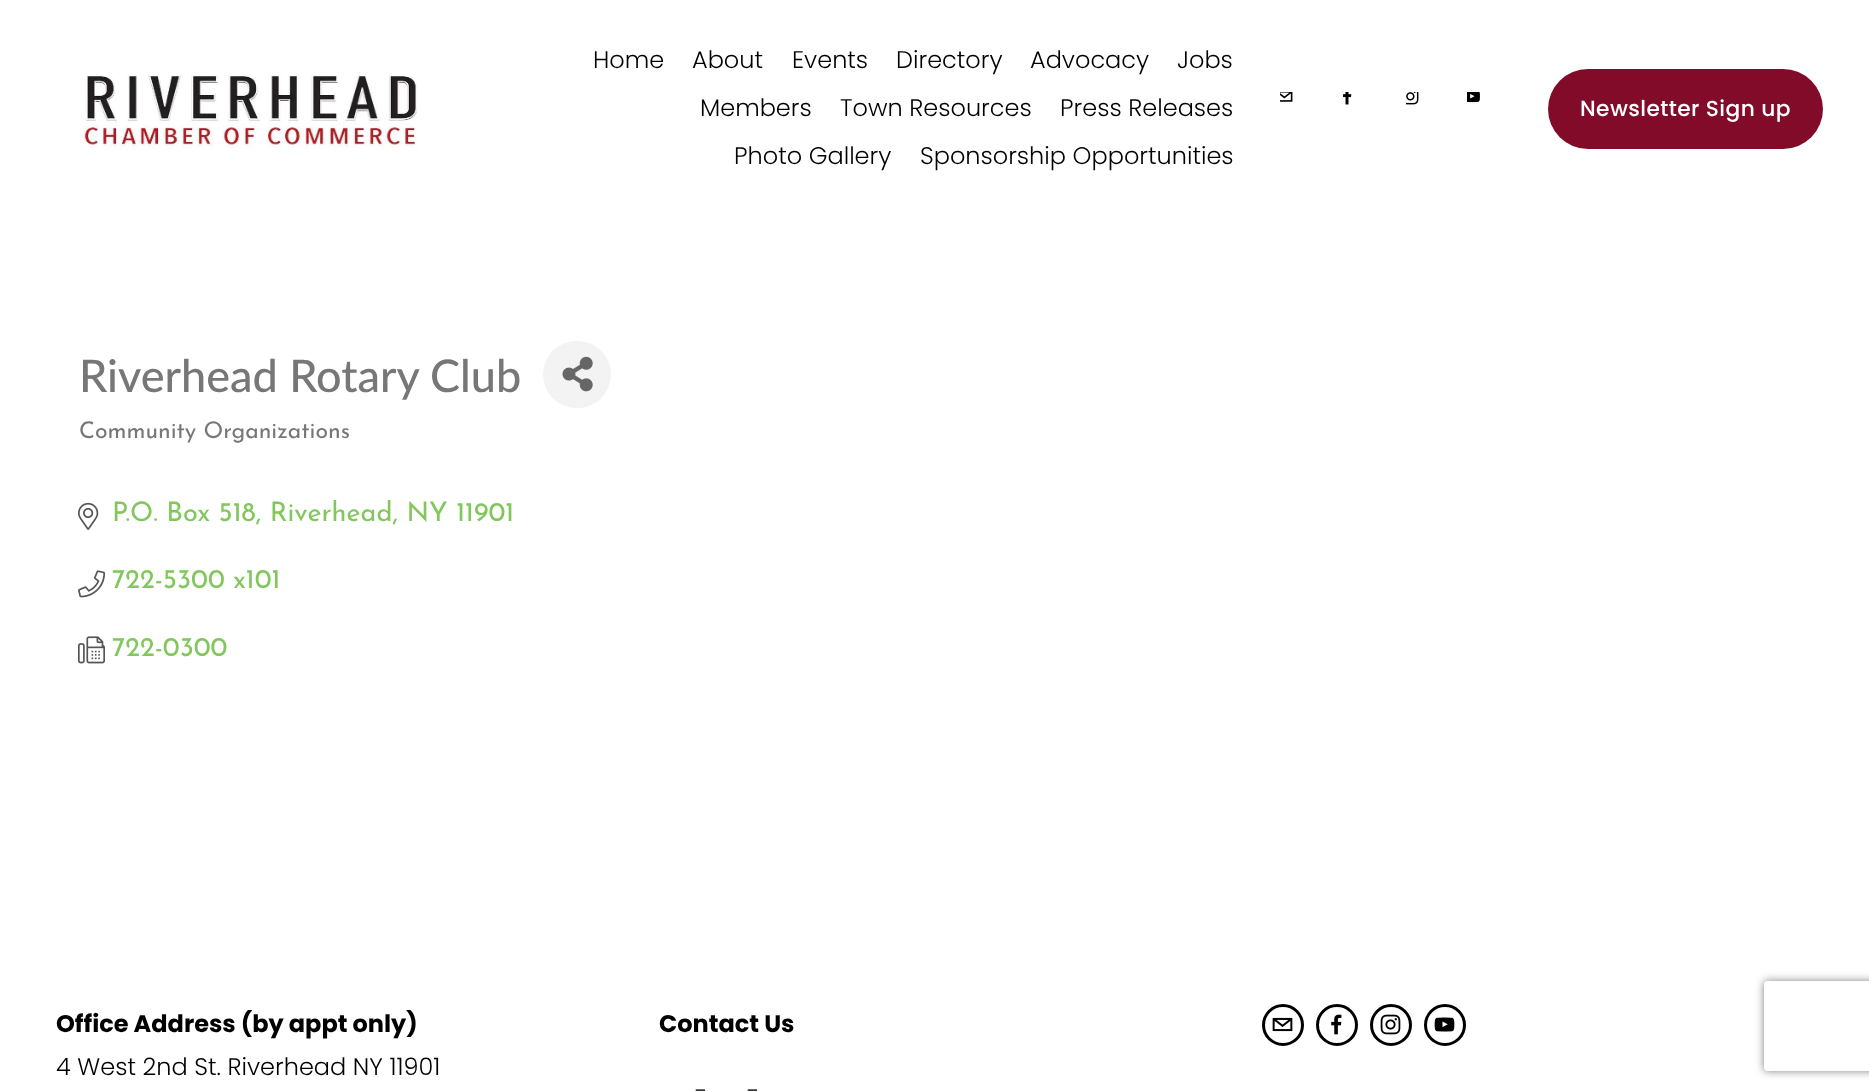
<!DOCTYPE html>
<meta charset="utf-8">
<style>body { margin: 0 } canvas { display: block }</style>
<canvas id="canvas" width="1869" height="1091"></canvas>
<script type="module">
  const canvas = document.getElementById("canvas");
  const g = canvas.getContext("2d");
  g.miterLimit = 4;
  g.fontKerning = "normal";
  function drawText(s, x, y, [font, color]) {
    g.font = font;
    g.fillStyle = color;
    g.fillText(s, x, y);
  }
  function fillBox(x, y, w, h, color) {
    g.fillStyle = color;
    g.fillRect(x, y, w, h);
  }
  function fillRounded(x, y, w, h, r, color) {
    g.fillStyle = color;
    g.beginPath();
    g.roundRect(x, y, w, h, r);
    g.fill();
  }
  async function drawPicture(src, x, y, w, h) {
    const img = new Image();
    img.src = src;
    await img.decode();
    g.drawImage(img, x, y, w, h);
  }

  const s1 = ["300 24px Poppins", "#000000"];
  const s2 = ["500 21.75px Poppins", "#FFFFFF"];
  const s3 = ["500 45px Lato", "#777777"];
  const s4 = ["23px Josefin Sans", "#777777"];
  const s5 = ["27px Josefin Sans", "#81C75B"];
  const s6 = ["bold 24px Poppins", "#000000"];

  fillBox(0, 0, 1869, 1091, "#FFFFFF");
  await drawPicture("pic1.png", 83, 75, 335, 75);
  drawText("Home", 593, 68, s1);
  drawText("About", 692, 68, s1);
  drawText("Events", 792, 68, s1);
  drawText("Directory", 896, 68, s1);
  drawText("Advocacy", 1030, 68, s1);
  drawText("Jobs", 1177, 68, s1);
  drawText("Members", 700, 116, s1);
  drawText("Town Resources", 840, 116, s1);
  drawText("Press Releases", 1060, 116, s1);
  drawText("Photo Gallery", 734, 164, s1);
  drawText("Sponsorship Opportunities", 920, 164, s1);
  await drawPicture("pic2.png", 1280, 92, 13, 10);
  await drawPicture("pic3.png", 1343, 92, 9, 13);
  await drawPicture("pic4.png", 1406, 92, 13, 13);
  await drawPicture("pic5.png", 1467, 92, 13, 11);
  fillRounded(1548, 69, 275, 80, 40, "#810B29");
  g.letterSpacing = "0.4px";
  drawText("Newsletter Sign up", 1580, 116, s2);
  g.letterSpacing = "0px";
  drawText("Riverhead Rotary Club", 79, 392, s3);
  fillRounded(543, 341, 68, 67, 33.5, "#F3F3F3");
  await drawPicture("pic6.png", 562, 356, 31, 36);
  drawText("Community Organizations", 79, 438, s4);
  await drawPicture("pic7.png", 78, 502, 21, 28);
  drawText("P.O. Box 518, Riverhead, NY 11901", 112, 521, s5);
  await drawPicture("pic8.png", 78, 570, 28, 28);
  drawText("722-5300 x101", 112, 588, s5);
  await drawPicture("pic9.png", 78, 636, 27, 28);
  drawText("722-0300", 112, 656, s5);
  drawText("Office Address (by appt only)", 56, 1032, s6);
  drawText("4 West 2nd St. Riverhead NY 11901", 56, 1075, s1);
  drawText("Contact Us", 659, 1032, s6);
  drawText("-", 695, 1099, s1);
  drawText("-", 747, 1099, s1);
  g.beginPath();
  g.arc(1283, 1025, 19.5, 0, Math.PI * 2);
  g.strokeStyle = "#000000";
  g.lineWidth = 3;
  g.stroke();
  await drawPicture("pic10.png", 1272, 1017, 21, 15);
  g.beginPath();
  g.arc(1337, 1025, 19.5, 0, Math.PI * 2);
  g.stroke();
  await drawPicture("pic11.png", 1331, 1014, 11, 21);
  g.beginPath();
  g.arc(1391, 1025, 19.5, 0, Math.PI * 2);
  g.stroke();
  await drawPicture("pic12.png", 1380, 1014, 21, 21);
  g.beginPath();
  g.arc(1445, 1025, 19.5, 0, Math.PI * 2);
  g.stroke();
  await drawPicture("pic13.png", 1434, 1017, 21, 15);
  g.save();
  g.beginPath();
  g.moveTo(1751, 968);
  g.lineTo(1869, 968);
  g.lineTo(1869, 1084);
  g.lineTo(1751, 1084);
  g.closePath();
  g.moveTo(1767, 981);
  g.lineTo(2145, 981);
  g.bezierCurveTo(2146.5, 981, 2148, 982.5, 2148, 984);
  g.lineTo(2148, 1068);
  g.bezierCurveTo(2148, 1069.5, 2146.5, 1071, 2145, 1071);
  g.lineTo(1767, 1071);
  g.bezierCurveTo(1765.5, 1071, 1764, 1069.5, 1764, 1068);
  g.lineTo(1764, 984);
  g.bezierCurveTo(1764, 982.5, 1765.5, 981, 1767, 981);
  g.closePath();
  g.clip("evenodd");
  g.fillStyle = "#808080";
  g.filter = "blur(4px)";
  g.beginPath();
  g.roundRect(1764, 981, 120, 90, 3);
  g.fill();
  g.filter = "none";
  g.restore();
</script>
